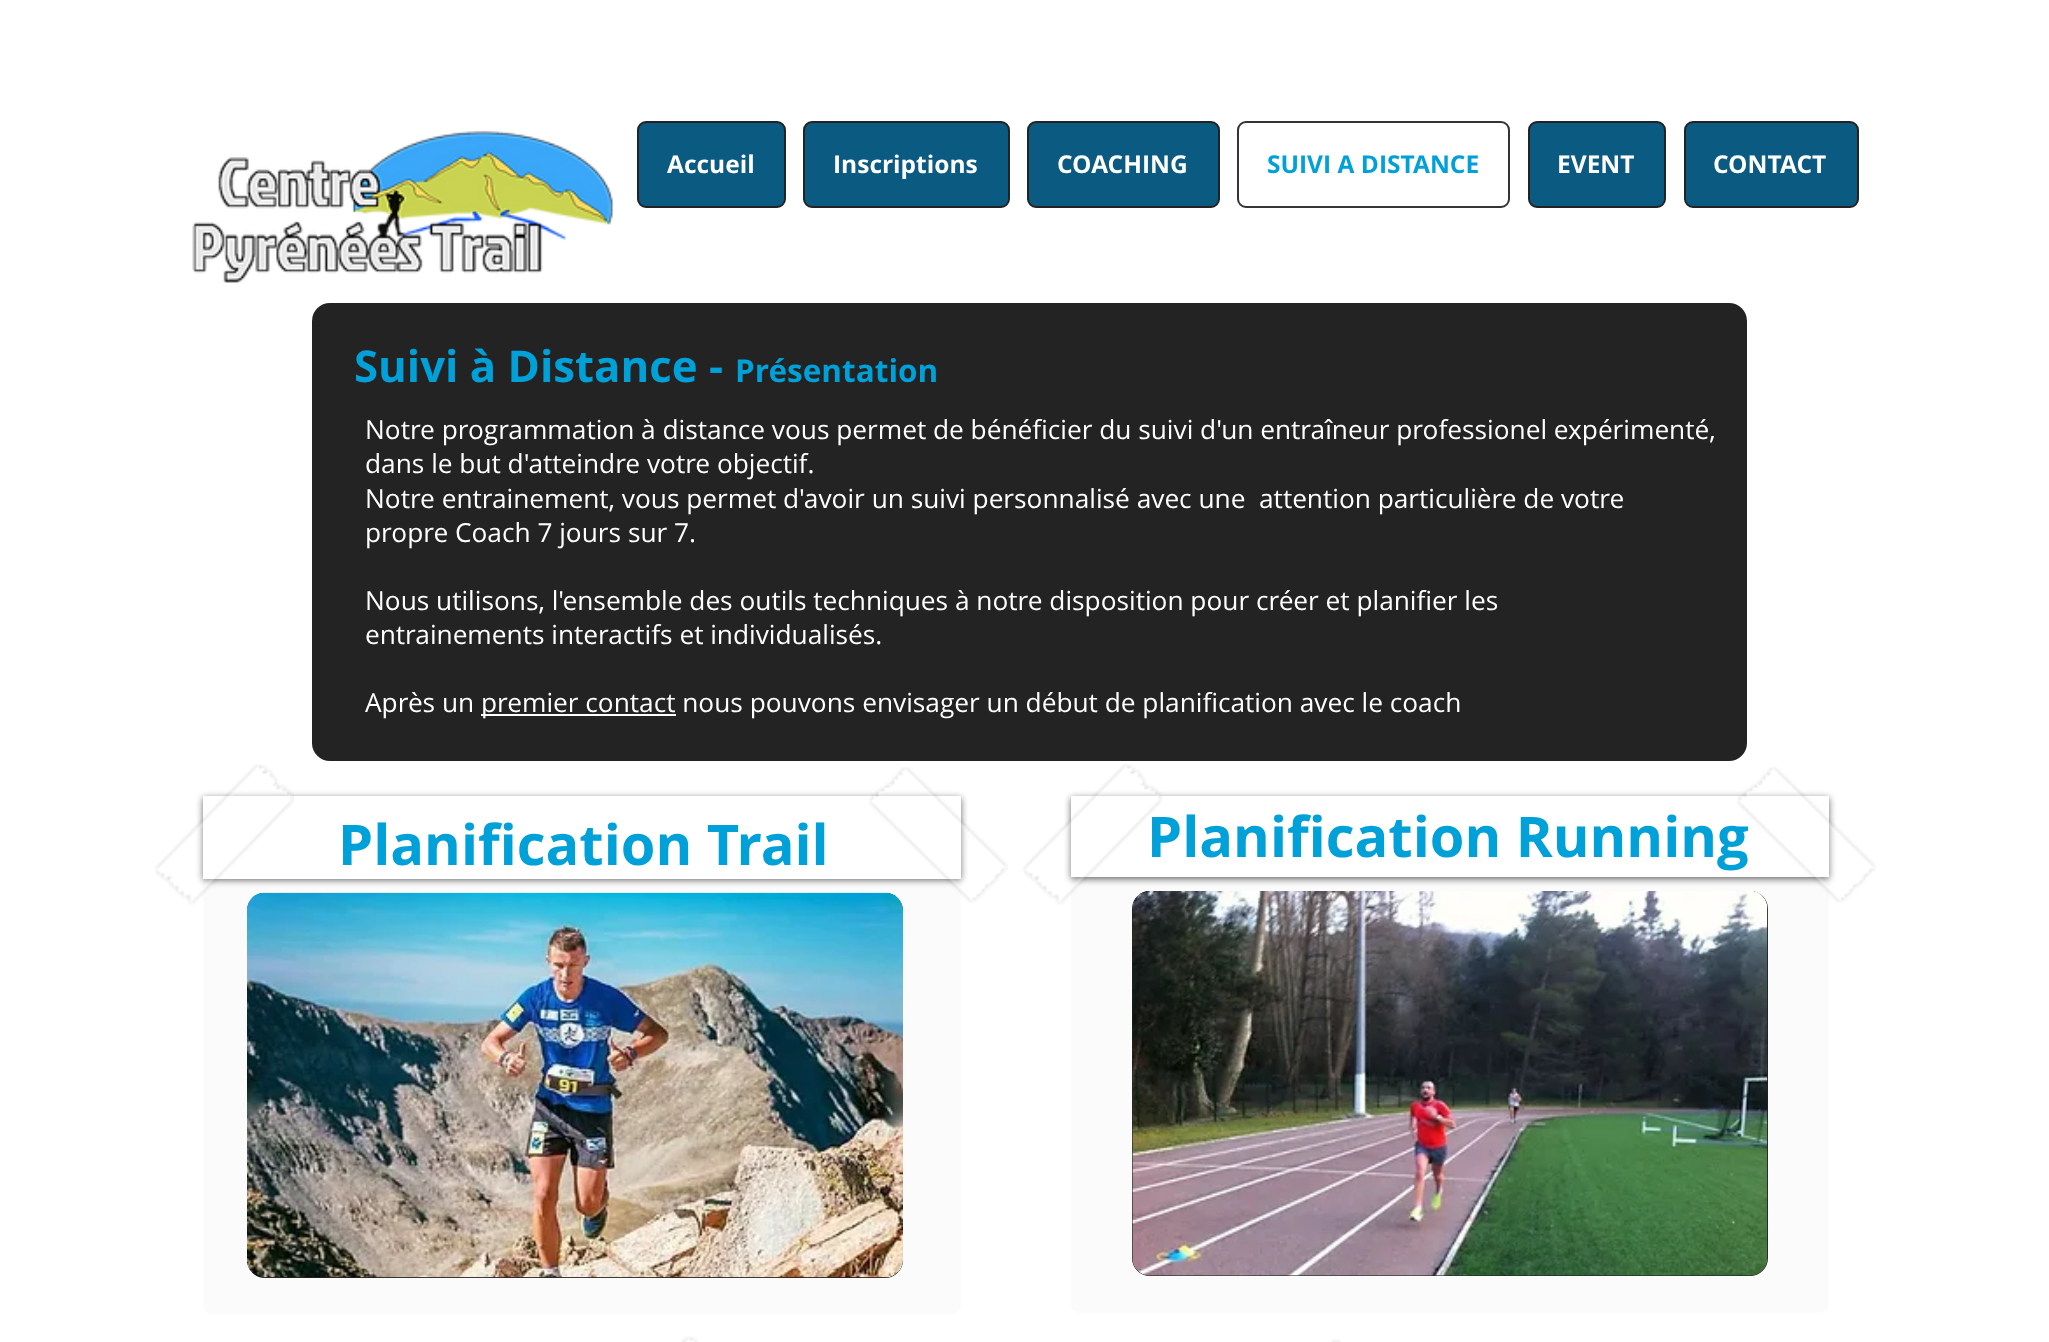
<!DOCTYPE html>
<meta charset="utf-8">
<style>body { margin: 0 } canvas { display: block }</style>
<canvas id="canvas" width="2049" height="1342"></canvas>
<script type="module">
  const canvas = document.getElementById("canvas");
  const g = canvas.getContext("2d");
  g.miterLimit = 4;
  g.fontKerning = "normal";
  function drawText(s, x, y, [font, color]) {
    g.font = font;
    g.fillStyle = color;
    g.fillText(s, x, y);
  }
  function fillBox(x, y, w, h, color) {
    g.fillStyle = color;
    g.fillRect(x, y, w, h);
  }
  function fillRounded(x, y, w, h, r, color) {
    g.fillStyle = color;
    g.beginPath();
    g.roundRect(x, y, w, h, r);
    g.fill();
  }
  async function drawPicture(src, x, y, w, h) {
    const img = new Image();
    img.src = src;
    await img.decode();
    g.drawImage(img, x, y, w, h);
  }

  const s1 = ["bold 24.5px Open Sans", "#FFFFFF"];
  const s2 = ["bold 24.5px Open Sans", "#00A0D9"];
  const s3 = ["bold 43.75px Open Sans", "#00A0D9"];
  const s4 = ["bold 31.5px Open Sans", "#00A0D9"];
  const s5 = ["26.25px Open Sans", "#FFFFFF"];
  const s6 = ["bold 56px Open Sans", "#00A0D9"];

  fillBox(0, 0, 2049, 1342, "#FFFFFF");
  await drawPicture("pic1.png", 192, 130, 421, 153);
  g.fillStyle = "#0A5A82";
  g.beginPath();
  g.roundRect(638, 122, 147, 85, 8);
  g.fill();
  g.strokeStyle = "#232323";
  g.lineWidth = 2;
  g.stroke();
  drawText("Accueil", 667, 173, s1);
  g.fillStyle = "#0A5A82";
  g.beginPath();
  g.roundRect(804, 122, 205, 85, 8);
  g.fill();
  g.stroke();
  drawText("Inscriptions", 833, 173, s1);
  g.fillStyle = "#0A5A82";
  g.beginPath();
  g.roundRect(1028, 122, 191, 85, 8);
  g.fill();
  g.stroke();
  drawText("COACHING", 1057, 173, s1);
  g.beginPath();
  g.roundRect(1238, 122, 271, 85, 8);
  g.strokeStyle = "#343434";
  g.stroke();
  drawText("SUIVI A DISTANCE", 1267, 173, s2);
  g.fillStyle = "#0A5A82";
  g.beginPath();
  g.roundRect(1529, 122, 136, 85, 8);
  g.fill();
  g.strokeStyle = "#232323";
  g.stroke();
  drawText("EVENT", 1557, 173, s1);
  g.fillStyle = "#0A5A82";
  g.beginPath();
  g.roundRect(1685, 122, 173, 85, 8);
  g.fill();
  g.stroke();
  drawText("CONTACT", 1713, 173, s1);
  fillRounded(312, 303, 1435, 458, 18, "#232323");
  drawText("Suivi à Distance -", 354, 382, s3);
  drawText("Présentation", 735, 382, s4);
  drawText("Notre programmation à distance vous permet de bénéficier du suivi d'un entraîneur professionel expérimenté,", 365, 439, s5);
  drawText("dans le but d'atteindre votre objectif.", 365, 473, s5);
  drawText("Notre entrainement, vous permet d'avoir un suivi personnalisé avec une  attention particulière de votre", 365, 508, s5);
  drawText("propre Coach 7 jours sur 7.", 365, 542, s5);
  drawText("Nous utilisons, l'ensemble des outils techniques à notre disposition pour créer et planifier les", 365, 610, s5);
  drawText("entrainements interactifs et individualisés.", 365, 644, s5);
  drawText("Après un", 365, 712, s5);
  fillBox(481, 714, 195, 2, "#FFFFFF");
  drawText("premier contact nous pouvons envisager un début de planification avec le coach", 481, 712, s5);
  fillRounded(203, 796, 758, 518, 9, "#FBFBFB");
  g.fillStyle = "rgba(0, 0, 0, 0.6)";
  g.filter = "blur(3.5px)";
  g.beginPath();
  g.rect(203, 798, 758, 82);
  g.fill();
  g.filter = "none";
  fillBox(203, 796, 758, 83, "#FFFFFF");
  await drawPicture("pic2.png", 155, 764, 139, 141);
  await drawPicture("pic3.png", 869, 767, 139, 136);
  drawText("Planification Trail", 338, 865, s6);
  fillRounded(247, 893, 656, 385, 18, "#232323");
  await drawPicture("pic4.png", 247, 892, 656, 386);
  fillRounded(1071, 796, 758, 517, 9, "#FBFBFB");
  g.fillStyle = "rgba(0, 0, 0, 0.6)";
  g.filter = "blur(3.5px)";
  g.beginPath();
  g.rect(1071, 798, 758, 81);
  g.fill();
  g.filter = "none";
  fillBox(1071, 796, 758, 81, "#FFFFFF");
  drawText("Planification Running", 1147, 857, s6);
  await drawPicture("pic5.png", 1023, 764, 139, 141);
  await drawPicture("pic6.png", 1737, 767, 139, 136);
  fillRounded(1132, 891, 636, 385, 18, "#232323");
  await drawPicture("pic7.png", 1132, 891, 636, 385);
  await drawPicture("pic8.png", 681, 1336, 18, 6);
  await drawPicture("pic9.png", 1331, 1339, 10, 3);
</script>
